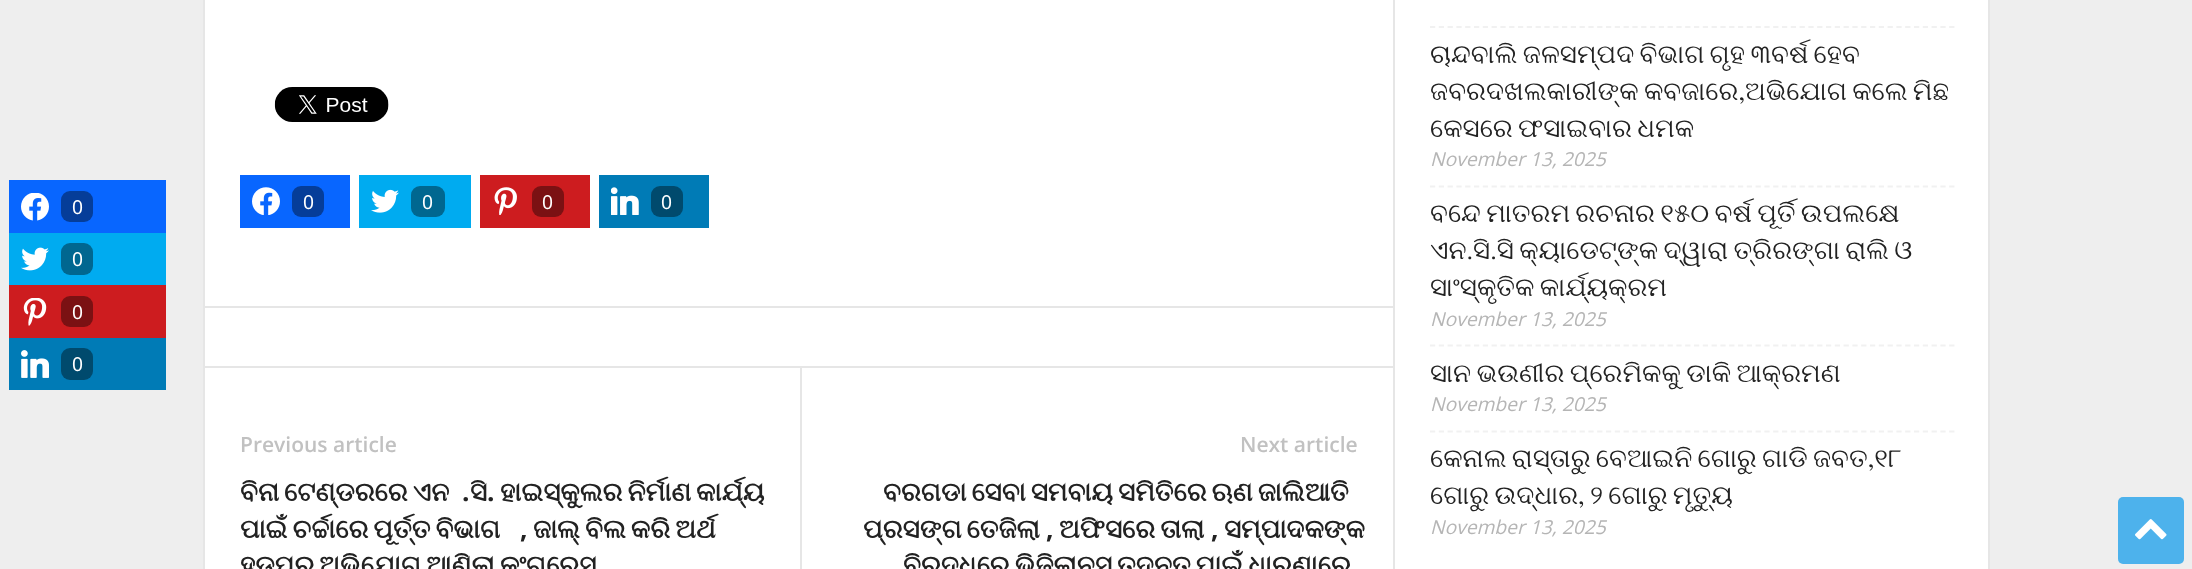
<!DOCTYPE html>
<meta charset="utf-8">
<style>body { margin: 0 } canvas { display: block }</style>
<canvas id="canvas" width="2192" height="569"></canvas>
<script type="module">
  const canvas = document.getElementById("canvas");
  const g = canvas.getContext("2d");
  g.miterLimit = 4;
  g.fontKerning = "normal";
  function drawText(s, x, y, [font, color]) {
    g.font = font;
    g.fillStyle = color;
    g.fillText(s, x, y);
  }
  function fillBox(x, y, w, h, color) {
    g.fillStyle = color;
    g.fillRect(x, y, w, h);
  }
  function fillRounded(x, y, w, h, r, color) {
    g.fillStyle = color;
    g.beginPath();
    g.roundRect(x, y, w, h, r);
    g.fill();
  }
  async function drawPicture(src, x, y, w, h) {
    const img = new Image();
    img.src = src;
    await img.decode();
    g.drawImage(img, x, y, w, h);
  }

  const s1 = ["19.25px Noto Sans", "#FFFFFF"];
  const s2 = ["600 21px Open Sans", "#C1C1C1"];
  const s3 = ["bold 26.25px FreeSerif", "#222222"];
  const s4 = ["bold 26.25px Open Sans", "#222222"];
  const s5 = ["26.25px FreeSerif", "#222222"];
  const s6 = ["italic 19.25px Open Sans", "#B5B5B5"];

  fillBox(0, 0, 2192, 569, "#EEEEEE");
  fillBox(9, 180, 157, 53, "#0866FF");
  await drawPicture("pic1.png", 21, 193, 28, 28);
  fillRounded(61, 191, 32, 31, 9, "#053D99");
  drawText("0", 72, 214, s1);
  fillBox(9, 233, 157, 52, "#00ABF0");
  await drawPicture("pic2.png", 21, 247, 28, 24);
  fillRounded(61, 243, 32, 32, 9, "#006790");
  drawText("0", 72, 266, s1);
  fillBox(9, 285, 157, 53, "#CD1C1F");
  await drawPicture("pic3.png", 23, 298, 24, 28);
  fillRounded(61, 296, 32, 31, 9, "#7B1113");
  drawText("0", 72, 319, s1);
  fillBox(9, 338, 157, 52, "#007BB6");
  await drawPicture("pic4.png", 21, 350, 28, 28);
  fillRounded(61, 348, 32, 32, 9, "#004A6D");
  drawText("0", 72, 371, s1);
  fillBox(205, 0, 1783, 569, "#FFFFFF");
  fillBox(203, 0, 2, 569, "#E6E6E6");
  await drawPicture("pic5.png", 274, 87, 115, 35);
  fillBox(240, 175, 110, 53, "#0866FF");
  await drawPicture("pic6.png", 252, 187, 28, 28);
  fillRounded(292, 186, 32, 31, 9, "#053D99");
  drawText("0", 303, 209, s1);
  fillBox(359, 175, 112, 53, "#00ABF0");
  await drawPicture("pic7.png", 371, 189, 28, 24);
  fillRounded(411, 186, 34, 31, 9, "#006790");
  drawText("0", 422, 209, s1);
  fillBox(480, 175, 110, 53, "#CD1C1F");
  await drawPicture("pic8.png", 494, 187, 23, 28);
  fillRounded(532, 186, 32, 31, 9, "#7B1113");
  drawText("0", 542, 209, s1);
  fillBox(599, 175, 110, 53, "#007BB6");
  await drawPicture("pic9.png", 611, 187, 28, 28);
  fillRounded(651, 186, 32, 31, 9, "#004A6D");
  drawText("0", 661, 209, s1);
  fillBox(205, 306, 1188, 2, "#E6E6E6");
  fillBox(205, 366, 1188, 2, "#E6E6E6");
  drawText("Previous article", 240, 452, s2);
  g.wordSpacing = "-1.5px";
  drawText("ବିନା ଟେଣ୍ଡରରେ ଏନ", 240, 501, s3);
  g.wordSpacing = "0px";
  drawText(".", 462, 501, s4);
  drawText("ସି", 470, 501, s3);
  g.wordSpacing = "-1.5px";
  drawText("ହାଇସ୍କୁଲର ନିର୍ମାଣ କାର୍ଯ୍ୟ", 500, 501, s3);
  g.wordSpacing = "0px";
  drawText(".", 487, 501, s4);
  g.wordSpacing = "-1.5px";
  drawText("ପାଇଁ ଚର୍ଚ୍ଚାରେ ପୂର୍ତ୍ତ ବିଭାଗ", 240, 538, s3);
  g.wordSpacing = "0px";
  drawText(",", 520, 538, s4);
  g.wordSpacing = "-1.5px";
  drawText("ଜାଲ୍ ବିଲ କରି ଅର୍ଥ", 533, 538, s3);
  drawText("ହଡ଼ପର ଅଭିଯୋଗ ଆଣିଲା କଂଗ୍ରେସ", 240, 574, s3);
  fillBox(800, 368, 2, 201, "#E6E6E6");
  g.wordSpacing = "0px";
  drawText("Next article", 1240, 452, s2);
  g.wordSpacing = "-1.5px";
  drawText("ବରଗଡା ସେବା ସମବାୟ ସମିତିରେ ଋଣ ଜାଲିଆତି", 883, 501, s3);
  drawText("ପ୍ରସଙ୍ଗ ତେଜିଲା", 863, 538, s3);
  g.wordSpacing = "0px";
  drawText(",", 1046, 538, s4);
  g.wordSpacing = "-1.5px";
  drawText("ଅଫିସରେ ତାଲା", 1059, 538, s3);
  g.wordSpacing = "0px";
  drawText(",", 1211, 538, s4);
  drawText("ସମ୍ପାଦକଙ୍କ", 1224, 538, s3);
  g.wordSpacing = "-1.5px";
  drawText("ବିରୁଦ୍ଧରେ ଭିଜିଲାନ୍ସ ତଦନ୍ତ ପାଇଁ ଧାରଣାରେ", 903, 574, s3);
  fillBox(1393, 0, 2, 569, "#E6E6E6");
  g.beginPath();
  g.moveTo(1430, 27);
  g.lineTo(1955, 27);
  g.strokeStyle = "#F1F1F1";
  g.lineWidth = 1.8;
  g.setLineDash([5.25, 3.55]);
  g.stroke();
  g.beginPath();
  g.moveTo(1430, 186.5);
  g.lineTo(1955, 186.5);
  g.stroke();
  g.wordSpacing = "-1.25px";
  drawText("ଚାନ୍ଦବାଲି ଜଳସମ୍ପଦ ବିଭାଗ ଗୃହ ୩ବର୍ଷ ହେବ", 1430, 63, s5);
  drawText("ଜବରଦଖଲକାରୀଙ୍କ କବଜାରେ,ଅଭିଯୋଗ କଲେ ମିଛ", 1430, 100, s5);
  drawText("କେସରେ ଫସାଇବାର ଧମକ", 1430, 137, s5);
  g.wordSpacing = "0px";
  drawText("November 13, 2025", 1430, 166, s6);
  g.beginPath();
  g.moveTo(1430, 345.5);
  g.lineTo(1955, 345.5);
  g.stroke();
  g.wordSpacing = "-1.25px";
  drawText("ବନ୍ଦେ ମାତରମ ରଚନାର ୧୫୦ ବର୍ଷ ପୂର୍ତି ଉପଲକ୍ଷେ", 1430, 222, s5);
  drawText("ଏନ.ସି.ସି କ୍ୟାଡେଟ୍ଙ୍କ ଦ୍ୱାରା ତ୍ରିରଙ୍ଗା ରାଲି ଓ", 1430, 259, s5);
  drawText("ସାଂସ୍କୃତିକ କାର୍ଯ୍ୟକ୍ରମ", 1430, 296, s5);
  g.wordSpacing = "0px";
  drawText("November 13, 2025", 1430, 326, s6);
  g.beginPath();
  g.moveTo(1430, 431.5);
  g.lineTo(1955, 431.5);
  g.stroke();
  g.wordSpacing = "-1.25px";
  drawText("ସାନ ଭଉଣୀର ପ୍ରେମିକକୁ ଡାକି ଆକ୍ରମଣ", 1430, 382, s5);
  g.wordSpacing = "0px";
  drawText("November 13, 2025", 1430, 411, s6);
  g.wordSpacing = "-1.25px";
  drawText("କେନାଲ ରାସ୍ତାରୁ ବେଆଇନି ଗୋରୁ ଗାଡି ଜବତ,୧୮", 1430, 467, s5);
  drawText("ଗୋରୁ ଉଦ୍ଧାର, ୨ ଗୋରୁ ମୃତ୍ୟୁ", 1430, 504, s5);
  g.wordSpacing = "0px";
  drawText("November 13, 2025", 1430, 534, s6);
  fillBox(1988, 0, 2, 569, "#E6E6E6");
  fillRounded(2118, 497, 66, 67, 5, "#4DB2EC");
  await drawPicture("pic10.png", 2135, 519, 32, 21);
</script>
